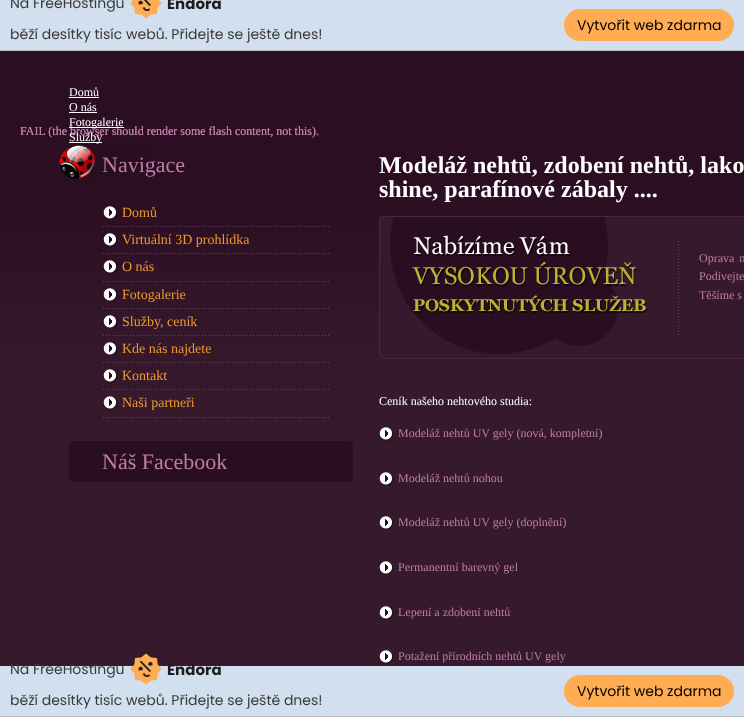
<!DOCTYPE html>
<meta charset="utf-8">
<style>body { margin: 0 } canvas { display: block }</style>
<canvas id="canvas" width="744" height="717"></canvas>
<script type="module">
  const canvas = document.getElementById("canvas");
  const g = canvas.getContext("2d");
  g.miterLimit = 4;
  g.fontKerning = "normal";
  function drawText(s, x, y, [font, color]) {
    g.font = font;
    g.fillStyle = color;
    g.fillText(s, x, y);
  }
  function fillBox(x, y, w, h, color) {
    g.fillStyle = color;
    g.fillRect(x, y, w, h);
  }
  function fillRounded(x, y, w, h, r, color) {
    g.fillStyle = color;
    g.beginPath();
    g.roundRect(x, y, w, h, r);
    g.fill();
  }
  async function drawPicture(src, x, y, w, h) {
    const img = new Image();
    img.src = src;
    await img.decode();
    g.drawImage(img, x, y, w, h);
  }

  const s1 = ["14px Poppins", "#3A3A3A"];
  const s2 = ["bold 15px Poppins", "#1E1E1E"];
  const s3 = ["14px Poppins", "#000000"];
  const s4 = ["12px Liberation Serif", "#FFFFFF"];
  const s5 = ["12px Liberation Serif", "#BF7CA9"];
  const s6 = ["22px Liberation Serif", "#BF7CA9"];
  const s7 = ["14px Liberation Serif", "#ED9A29"];
  const s8 = ["bold 24px Liberation Serif", "#FFFFFF"];

  fillBox(0, 0, 744, 717, "#D2DFEF");
  fillBox(0, 50, 744, 1, "#BEBFC4");
  drawText("Na FreeHostingu", 10, 8, s1);
  await drawPicture("pic1.png", 130, 0, 32, 19);
  drawText("Endora", 167, 9, s2);
  drawText("běží desítky tisíc webů. Přidejte se ještě dnes!", 10, 39, s1);
  fillRounded(564, 9, 170, 32, 16, "#FFAC52");
  drawText("Vytvořit web zdarma", 577, 30, s3);
  await drawPicture("pic2.png", 0, 51, 744, 615);
  drawText("Domů", 69, 96, s4);
  fillBox(69, 97, 30, 1, "#FFFFFF");
  drawText("O nás", 69, 111, s4);
  fillBox(69, 112, 28, 1, "#FFFFFF");
  await drawPicture("pic3.png", 20, 126, 299, 12);
  drawText("FAIL (the browser should render some flash content, not this).", 20, 135, s5);
  fillBox(69, 127, 55, 1, "#FFFFFF");
  drawText("Fotogalerie", 69, 126, s4);
  fillBox(69, 142, 33, 1, "#FFFFFF");
  drawText("Služby", 69, 141, s4);
  fillBox(95, 147, 51, 26, "#290E20");
  await drawPicture("pic4.png", 59, 144, 36, 40);
  drawText("Navigace", 102, 172, s6);
  await drawPicture("pic5.png", 103, 226, 226, 1);
  await drawPicture("pic6.png", 103, 206, 15, 14);
  drawText("Domů", 122, 217, s7);
  await drawPicture("pic7.png", 103, 253, 226, 1);
  await drawPicture("pic8.png", 103, 233, 15, 14);
  drawText("Virtuální 3D prohlídka", 122, 244, s7);
  await drawPicture("pic9.png", 103, 281, 226, 1);
  await drawPicture("pic10.png", 103, 260, 15, 14);
  drawText("O nás", 122, 271, s7);
  await drawPicture("pic11.png", 103, 308, 226, 1);
  await drawPicture("pic12.png", 103, 288, 15, 14);
  drawText("Fotogalerie", 122, 299, s7);
  await drawPicture("pic13.png", 103, 335, 226, 1);
  await drawPicture("pic14.png", 103, 315, 15, 14);
  drawText("Služby, ceník", 122, 326, s7);
  await drawPicture("pic15.png", 103, 362, 226, 1);
  await drawPicture("pic16.png", 103, 342, 15, 14);
  drawText("Kde nás najdete", 122, 353, s7);
  await drawPicture("pic17.png", 103, 389, 226, 1);
  await drawPicture("pic18.png", 103, 369, 15, 14);
  drawText("Kontakt", 122, 380, s7);
  await drawPicture("pic19.png", 103, 417, 226, 1);
  await drawPicture("pic20.png", 103, 396, 15, 14);
  drawText("Naši partneři", 122, 407, s7);
  await drawPicture("pic21.png", 69, 441, 284, 41);
  drawText("Náš Facebook", 102, 469, s6);
  drawText("Modeláž nehtů, zdobení nehtů, lako", 379, 173, s8);
  drawText("shine, parafínové zábaly ....", 379, 197, s8);
  await drawPicture("pic22.png", 379, 216, 365, 143);
  g.wordSpacing = "2px";
  drawText("Oprava n", 699, 262, s5);
  g.wordSpacing = "4px";
  drawText("Podívejte", 699, 280, s5);
  g.wordSpacing = "0px";
  drawText("Těšíme s", 699, 299, s5);
  drawText("Ceník našeho nehtového studia:", 379, 405, s4);
  await drawPicture("pic20.png", 379, 427, 15, 14);
  drawText("Modeláž nehtů UV gely (nová, kompletní)", 398, 437, s5);
  await drawPicture("pic20.png", 379, 472, 15, 14);
  drawText("Modeláž nehtů nohou", 398, 482, s5);
  await drawPicture("pic20.png", 379, 516, 15, 14);
  drawText("Modeláž nehtů UV gely (doplnění)", 398, 526, s5);
  await drawPicture("pic20.png", 379, 561, 15, 14);
  drawText("Permanentní barevný gel", 398, 571, s5);
  await drawPicture("pic20.png", 379, 606, 15, 14);
  drawText("Lepení a zdobení nehtů", 398, 616, s5);
  await drawPicture("pic20.png", 379, 650, 15, 14);
  drawText("Potažení přírodních nehtů UV gely", 398, 660, s5);
  fillBox(0, 716, 744, 1, "#BEBFC4");
  drawText("Na FreeHostingu", 10, 674, s1);
  await drawPicture("pic23.png", 130, 653, 32, 32);
  drawText("Endora", 167, 675, s2);
  drawText("běží desítky tisíc webů. Přidejte se ještě dnes!", 10, 705, s1);
  fillRounded(564, 675, 170, 32, 16, "#FFAC52");
  drawText("Vytvořit web zdarma", 577, 696, s3);
</script>
